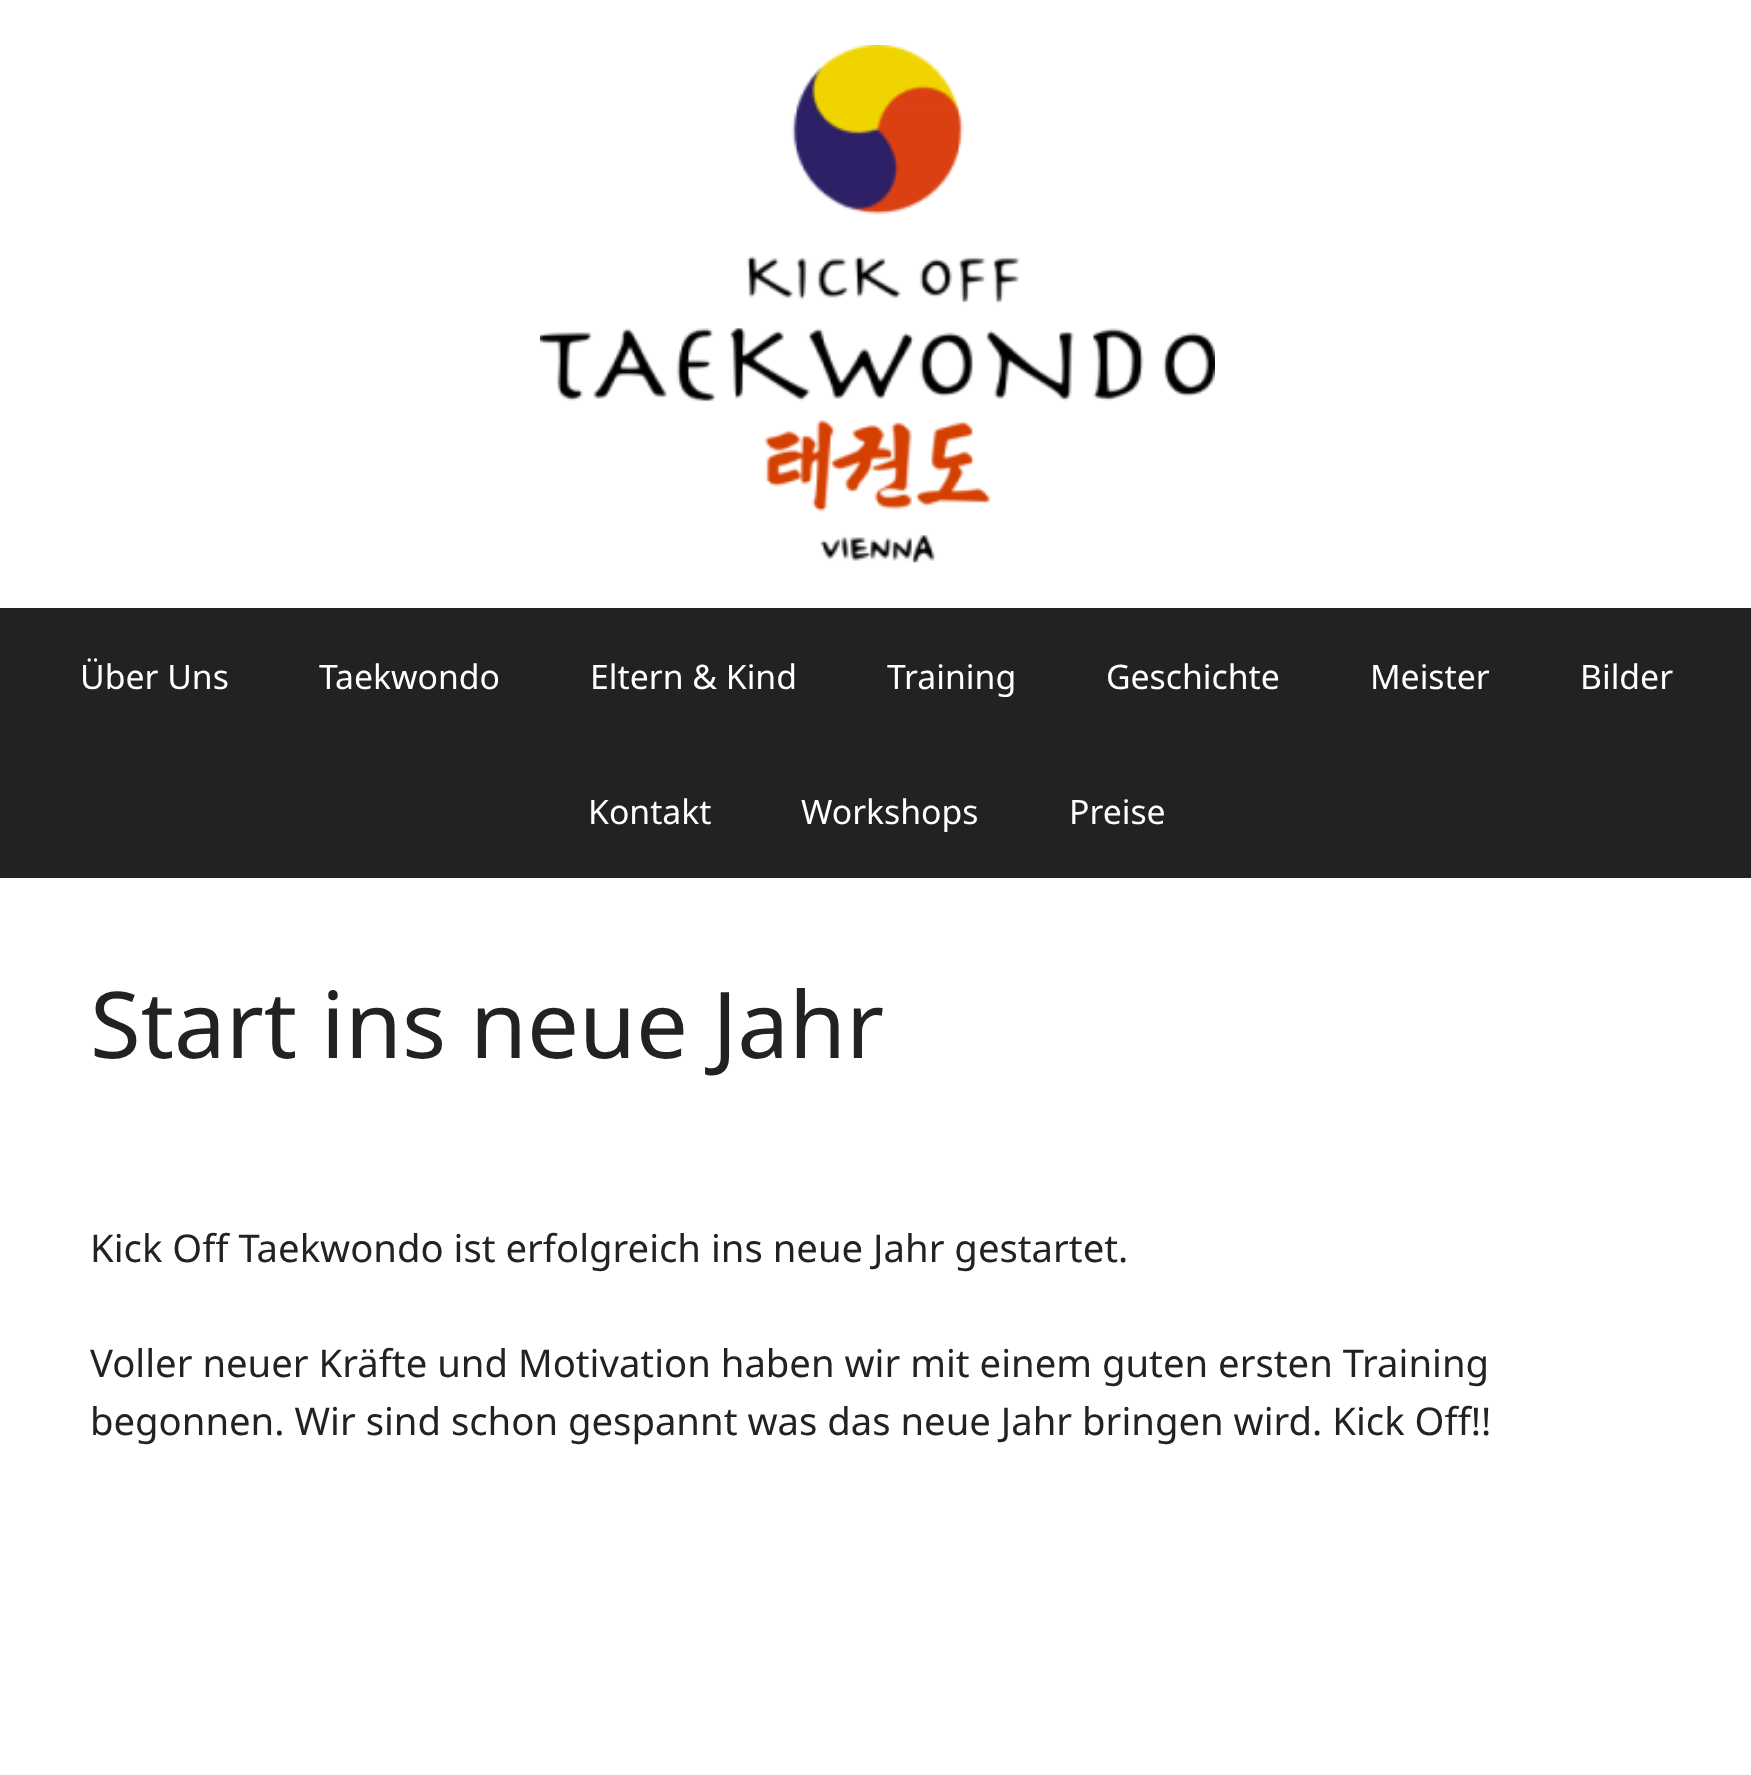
<!DOCTYPE html>
<meta charset="utf-8">
<style>body { margin: 0 } canvas { display: block }</style>
<canvas id="canvas" width="1751" height="1775"></canvas>
<script type="module">
  const canvas = document.getElementById("canvas");
  const g = canvas.getContext("2d");
  g.miterLimit = 4;
  g.fontKerning = "normal";
  function drawText(s, x, y, [font, color]) {
    g.font = font;
    g.fillStyle = color;
    g.fillText(s, x, y);
  }
  function fillBox(x, y, w, h, color) {
    g.fillStyle = color;
    g.fillRect(x, y, w, h);
  }
  async function drawPicture(src, x, y, w, h) {
    const img = new Image();
    img.src = src;
    await img.decode();
    g.drawImage(img, x, y, w, h);
  }

  const s1 = ["33.75px Noto Sans", "#FFFFFF"];
  const s2 = ["92.25px Noto Sans", "#222222"];
  const s3 = ["38.25px Noto Sans", "#222222"];

  fillBox(0, 0, 1751, 1775, "#222222");
  fillBox(0, 0, 1751, 608, "#FFFFFF");
  await drawPicture("pic1.png", 540, 45, 675, 518);
  drawText("Über Uns", 80, 689, s1);
  drawText("Taekwondo", 319, 689, s1);
  drawText("Eltern & Kind", 590, 689, s1);
  drawText("Training", 887, 689, s1);
  drawText("Geschichte", 1106, 689, s1);
  drawText("Meister", 1370, 689, s1);
  drawText("Bilder", 1580, 689, s1);
  drawText("Kontakt", 588, 824, s1);
  drawText("Workshops", 801, 824, s1);
  drawText("Preise", 1069, 824, s1);
  fillBox(0, 878, 1751, 897, "#FFFFFF");
  drawText("Start ins neue Jahr", 90, 1058, s2);
  drawText("Kick Off Taekwondo ist erfolgreich ins neue Jahr gestartet.", 90, 1262, s3);
  drawText("Voller neuer Kräfte und Motivation haben wir mit einem guten ersten Training", 90, 1377, s3);
  drawText("begonnen. Wir sind schon gespannt was das neue Jahr bringen wird. Kick Off!!", 90, 1435, s3);
</script>
